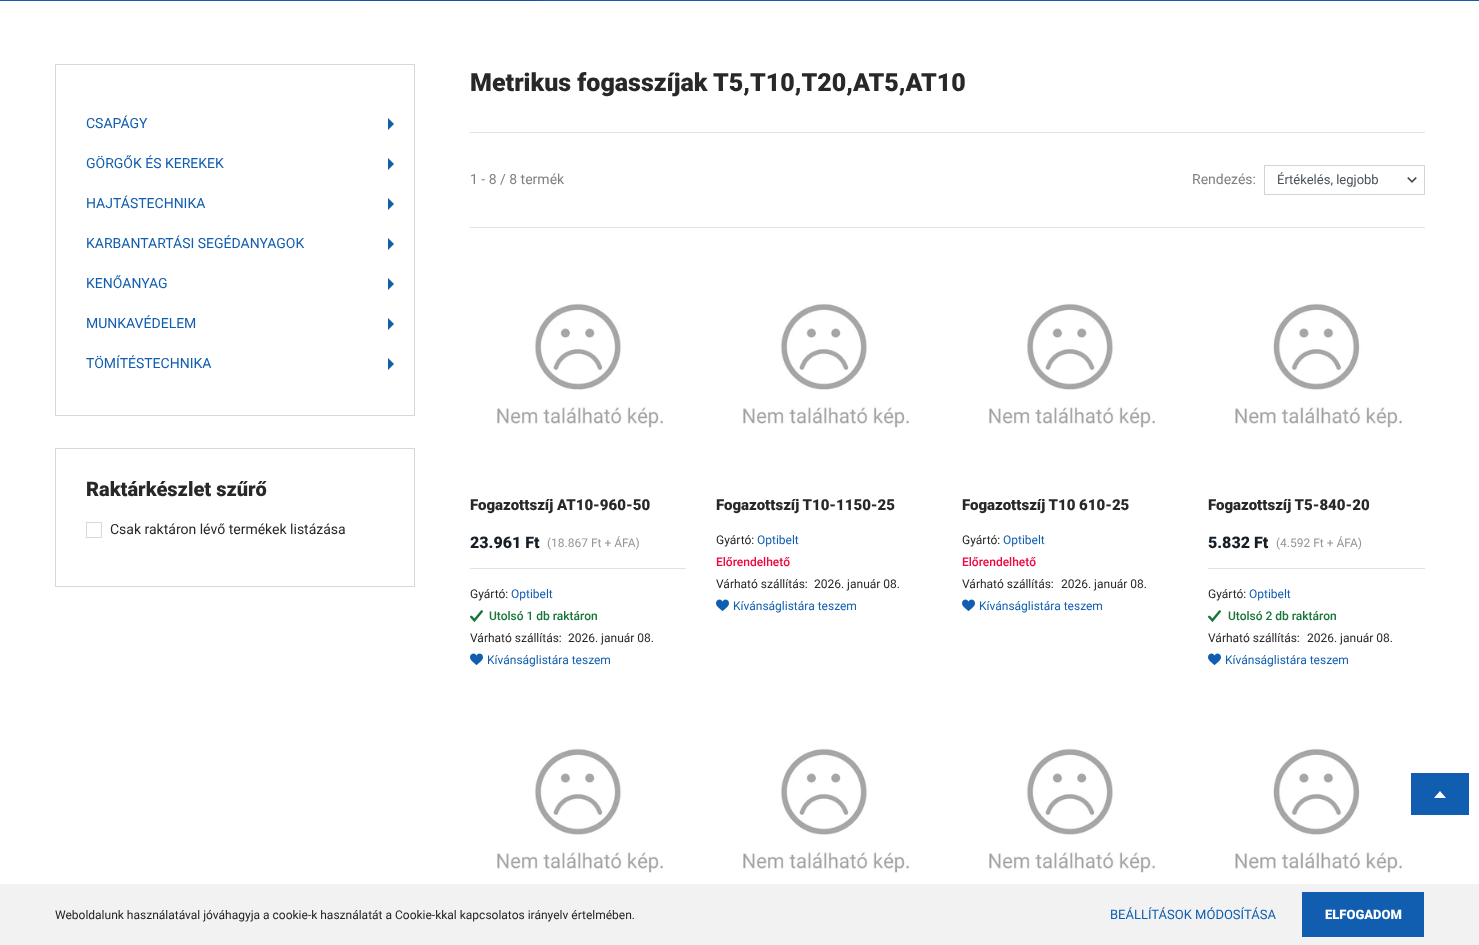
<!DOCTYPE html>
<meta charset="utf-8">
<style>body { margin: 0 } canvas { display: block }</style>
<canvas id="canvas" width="1479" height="945"></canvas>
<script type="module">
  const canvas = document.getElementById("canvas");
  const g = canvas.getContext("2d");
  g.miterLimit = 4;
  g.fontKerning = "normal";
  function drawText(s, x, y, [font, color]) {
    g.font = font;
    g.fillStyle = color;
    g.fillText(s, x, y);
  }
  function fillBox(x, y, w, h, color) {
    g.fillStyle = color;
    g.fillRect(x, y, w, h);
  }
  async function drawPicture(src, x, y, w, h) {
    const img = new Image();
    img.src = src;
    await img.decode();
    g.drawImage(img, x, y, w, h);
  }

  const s1 = ["14px Roboto", "#115EB0"];
  const s2 = ["900 20px Roboto", "#282729"];
  const s3 = ["14px Roboto", "#282729"];
  const s4 = ["900 25px Roboto", "#282729"];
  const s5 = ["14px Roboto", "#808080"];
  const s6 = ["13px Roboto", "#495057"];
  const s7 = ["900 15px Roboto", "#282729"];
  const s8 = ["900 16px Roboto", "#151E26"];
  const s9 = ["12px Roboto", "#929597"];
  const s10 = ["12px Roboto", "#282729"];
  const s11 = ["12px Roboto", "#115EB0"];
  const s12 = ["500 12px Roboto", "#177537"];
  const s13 = ["500 12px Roboto", "#F00540"];
  const s14 = ["12px Roboto", "#212529"];
  const s15 = ["13px Roboto", "#115EB0"];
  const s16 = ["900 13px Roboto", "#FFFFFF"];

  fillBox(0, 0, 1479, 945, "#FFFFFF");
  fillBox(0, 884, 1479, 61, "#F2F2F2");
  fillBox(0, 0, 1479, 1, "#115EB0");
  fillBox(361, 0, 176, 1, "#1057A2");
  g.strokeStyle = "#D8D8D8";
  g.strokeRect(55.5, 64.5, 359, 351);
  drawText("CSAPÁGY", 86, 128, s1);
  g.beginPath();
  g.moveTo(388, 130);
  g.lineTo(388, 118);
  g.lineTo(394, 124);
  g.closePath();
  g.fill();
  drawText("GÖRGŐK ÉS KEREKEK", 86, 168, s1);
  g.beginPath();
  g.moveTo(388, 170);
  g.lineTo(388, 158);
  g.lineTo(394, 164);
  g.closePath();
  g.fill();
  drawText("HAJTÁSTECHNIKA", 86, 208, s1);
  g.beginPath();
  g.moveTo(388, 210);
  g.lineTo(388, 198);
  g.lineTo(394, 204);
  g.closePath();
  g.fill();
  drawText("KARBANTARTÁSI SEGÉDANYAGOK", 86, 248, s1);
  g.beginPath();
  g.moveTo(388, 250);
  g.lineTo(388, 238);
  g.lineTo(394, 244);
  g.closePath();
  g.fill();
  drawText("KENŐANYAG", 86, 288, s1);
  g.beginPath();
  g.moveTo(388, 290);
  g.lineTo(388, 278);
  g.lineTo(394, 284);
  g.closePath();
  g.fill();
  drawText("MUNKAVÉDELEM", 86, 328, s1);
  g.beginPath();
  g.moveTo(388, 330);
  g.lineTo(388, 318);
  g.lineTo(394, 324);
  g.closePath();
  g.fill();
  drawText("TÖMÍTÉSTECHNIKA", 86, 368, s1);
  g.beginPath();
  g.moveTo(388, 370);
  g.lineTo(388, 358);
  g.lineTo(394, 364);
  g.closePath();
  g.fill();
  g.strokeRect(55.5, 448.5, 359, 138);
  drawText("Raktárkészlet szűrő", 86, 496, s2);
  g.strokeRect(86.5, 522.5, 15, 15);
  drawText("Csak raktáron lévő termékek listázása", 110, 534, s3);
  drawText("Metrikus fogasszíjak T5,T10,T20,AT5,AT10", 470, 91, s4);
  fillBox(470, 132, 955, 1, "#E2E2E2");
  fillBox(470, 227, 955, 1, "#E2E2E2");
  drawText("1 - 8 / 8 termék", 470, 184, s5);
  drawText("Rendezés:", 1192, 184, s5);
  await drawPicture("pic1.png", 1407, 177, 10, 6);
  g.strokeStyle = "#D3D3D3";
  g.strokeRect(1264.5, 165.5, 160, 29);
  drawText("Értékelés, legjobb", 1277, 184, s6);
  await drawPicture("pic2.png", 497, 303, 166, 125);
  drawText("Fogazottszíj AT10-960-50", 470, 510, s7);
  fillBox(470, 568, 216, 1, "#E2E2E2");
  drawText("23.961 Ft", 470, 548, s8);
  drawText("(18.867 Ft + ÁFA)", 547, 547, s9);
  drawText("Gyártó:", 470, 598, s10);
  drawText("Optibelt", 511, 598, s11);
  await drawPicture("pic3.png", 470, 610, 13, 13);
  drawText("Utolsó 1 db raktáron", 489, 620, s12);
  drawText("Várható szállítás:", 470, 642, s10);
  drawText("2026. január 08.", 568, 642, s10);
  await drawPicture("pic4.png", 470, 653, 13, 12);
  drawText("Kívánságlistára teszem", 487, 664, s11);
  await drawPicture("pic2.png", 743, 303, 166, 125);
  drawText("Fogazottszíj T10-1150-25", 716, 510, s7);
  drawText("Gyártó:", 716, 544, s10);
  drawText("Optibelt", 757, 544, s11);
  drawText("Előrendelhető", 716, 566, s13);
  drawText("Várható szállítás:", 716, 588, s10);
  drawText("2026. január 08.", 814, 588, s10);
  await drawPicture("pic4.png", 716, 599, 13, 12);
  drawText("Kívánságlistára teszem", 733, 610, s11);
  await drawPicture("pic2.png", 989, 303, 166, 125);
  drawText("Fogazottszíj T10 610-25", 962, 510, s7);
  drawText("Gyártó:", 962, 544, s10);
  drawText("Optibelt", 1003, 544, s11);
  drawText("Előrendelhető", 962, 566, s13);
  drawText("Várható szállítás:", 962, 588, s10);
  drawText("2026. január 08.", 1061, 588, s10);
  await drawPicture("pic4.png", 962, 599, 13, 12);
  drawText("Kívánságlistára teszem", 979, 610, s11);
  await drawPicture("pic5.png", 1235, 303, 167, 125);
  drawText("Fogazottszíj T5-840-20", 1208, 510, s7);
  fillBox(1208, 568, 217, 1, "#E2E2E2");
  drawText("5.832 Ft", 1208, 548, s8);
  drawText("(4.592 Ft + ÁFA)", 1276, 547, s9);
  drawText("Gyártó:", 1208, 598, s10);
  drawText("Optibelt", 1249, 598, s11);
  await drawPicture("pic3.png", 1208, 610, 13, 13);
  drawText("Utolsó 2 db raktáron", 1228, 620, s12);
  drawText("Várható szállítás:", 1208, 642, s10);
  drawText("2026. január 08.", 1307, 642, s10);
  await drawPicture("pic4.png", 1208, 653, 13, 12);
  drawText("Kívánságlistára teszem", 1225, 664, s11);
  await drawPicture("pic2.png", 497, 748, 166, 125);
  await drawPicture("pic2.png", 743, 748, 166, 125);
  await drawPicture("pic2.png", 989, 748, 166, 125);
  await drawPicture("pic5.png", 1235, 748, 167, 125);
  fillBox(1411, 773, 58, 42, "#115EB0");
  g.fillStyle = "#FFFFFF";
  g.beginPath();
  g.moveTo(1446, 798);
  g.lineTo(1440, 791);
  g.lineTo(1434, 798);
  g.closePath();
  g.fill();
  drawText("Weboldalunk használatával jóváhagyja a cookie-k használatát a Cookie-kkal kapcsolatos irányelv értelmében.", 55, 919, s14);
  drawText("BEÁLLÍTÁSOK MÓDOSÍTÁSA", 1110, 919, s15);
  fillBox(1302, 892, 122, 45, "#115EB0");
  drawText("ELFOGADOM", 1325, 919, s16);
</script>
